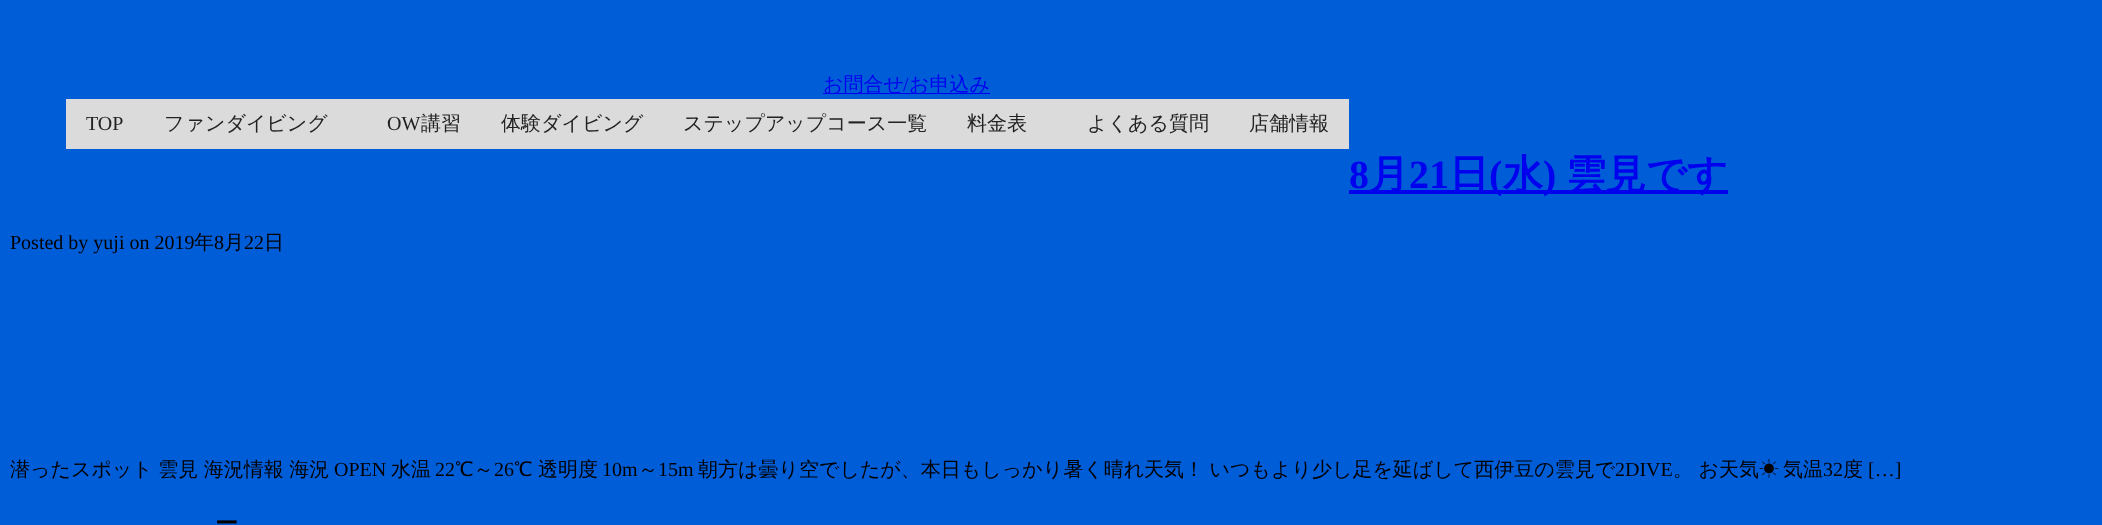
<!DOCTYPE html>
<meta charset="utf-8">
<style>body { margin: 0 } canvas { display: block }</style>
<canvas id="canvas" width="2102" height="525"></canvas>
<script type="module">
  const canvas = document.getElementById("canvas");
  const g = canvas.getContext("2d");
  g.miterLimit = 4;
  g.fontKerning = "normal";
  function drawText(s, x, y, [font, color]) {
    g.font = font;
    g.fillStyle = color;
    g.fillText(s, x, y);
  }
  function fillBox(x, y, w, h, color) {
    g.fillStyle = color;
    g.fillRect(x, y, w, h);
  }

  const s1 = ["500 20px WenQuanYi Zen Hei", "#0000EE"];
  const s2 = ["20px Liberation Serif", "#0000EE"];
  const s3 = ["20px Liberation Serif", "#222222"];
  const s4 = ["500 20px WenQuanYi Zen Hei", "#222222"];
  const s5 = ["bold 40px Liberation Serif", "#0000EE"];
  const s6 = ["bold 40px WenQuanYi Zen Hei", "#0000EE"];
  const s7 = ["20px Liberation Serif", "#000000"];
  const s8 = ["500 20px WenQuanYi Zen Hei", "#000000"];
  const s9 = ["20px IPAPGothic", "#000000"];
  const s10 = ["bold 23px WenQuanYi Zen Hei", "#000000"];

  fillBox(0, 0, 2102, 525, "#005DD8");
  fillBox(823, 93, 167, 1, "#0000EE");
  drawText("お問合せ", 823, 91, s1);
  drawText("/", 903, 91, s2);
  drawText("お申込み", 909, 91, s1);
  fillBox(66, 99, 1283, 50, "#DCDBDB");
  drawText("TOP", 86, 130, s3);
  drawText("ファンダイビング", 164, 130, s4);
  drawText("OW", 387, 130, s3);
  drawText("講習", 421, 130, s4);
  drawText("体験ダイビング", 501, 130, s4);
  drawText("ステップアップコース一覧", 683, 130, s4);
  drawText("料金表", 967, 130, s4);
  drawText("よくある質問", 1087, 130, s4);
  drawText("店舗情報", 1249, 130, s4);
  drawText("8", 1349, 188, s5);
  fillBox(1349, 190, 379, 4, "#0000EE");
  drawText("月", 1369, 188, s6);
  drawText("21", 1409, 188, s5);
  drawText("日", 1449, 188, s6);
  drawText("(", 1489, 188, s5);
  drawText("水", 1503, 188, s6);
  drawText(")", 1543, 188, s5);
  drawText("雲見です", 1566, 188, s6);
  drawText("Posted by yuji on 2019", 10, 249, s7);
  drawText("年", 194, 249, s8);
  drawText("8", 214, 249, s7);
  drawText("月", 224, 249, s8);
  drawText("22", 244, 249, s7);
  drawText("日", 264, 249, s8);
  g.wordSpacing = "-0.5px";
  drawText("潜ったスポット 雲見 海況情報 海況", 10, 476, s8);
  g.wordSpacing = "0px";
  drawText("OPEN", 334, 476, s7);
  drawText("水温", 391, 476, s8);
  drawText("22", 435, 476, s7);
  drawText("℃～", 455, 476, s8);
  drawText("26", 494, 476, s7);
  g.wordSpacing = "-0.5px";
  drawText("℃ 透明度", 514, 476, s8);
  g.wordSpacing = "0px";
  drawText("10m", 602, 476, s7);
  drawText("～", 638, 476, s8);
  drawText("15m", 658, 476, s7);
  g.wordSpacing = "-0.5px";
  drawText("朝方は曇り空でしたが、本日もしっかり暑く晴れ天気！ いつもより少し足を延ばして西伊豆の雲見で", 698, 476, s8);
  g.wordSpacing = "0px";
  drawText("2DIVE", 1615, 476, s7);
  g.wordSpacing = "-0.5px";
  drawText("。 お天気", 1673, 476, s8);
  g.wordSpacing = "0px";
  drawText("☀", 1759, 476, s9);
  drawText("気温", 1783, 476, s8);
  drawText("32", 1823, 476, s7);
  drawText("度", 1843, 476, s8);
  drawText("[…]", 1868, 476, s7);
  drawText("ー", 215, 531, s10);
</script>
